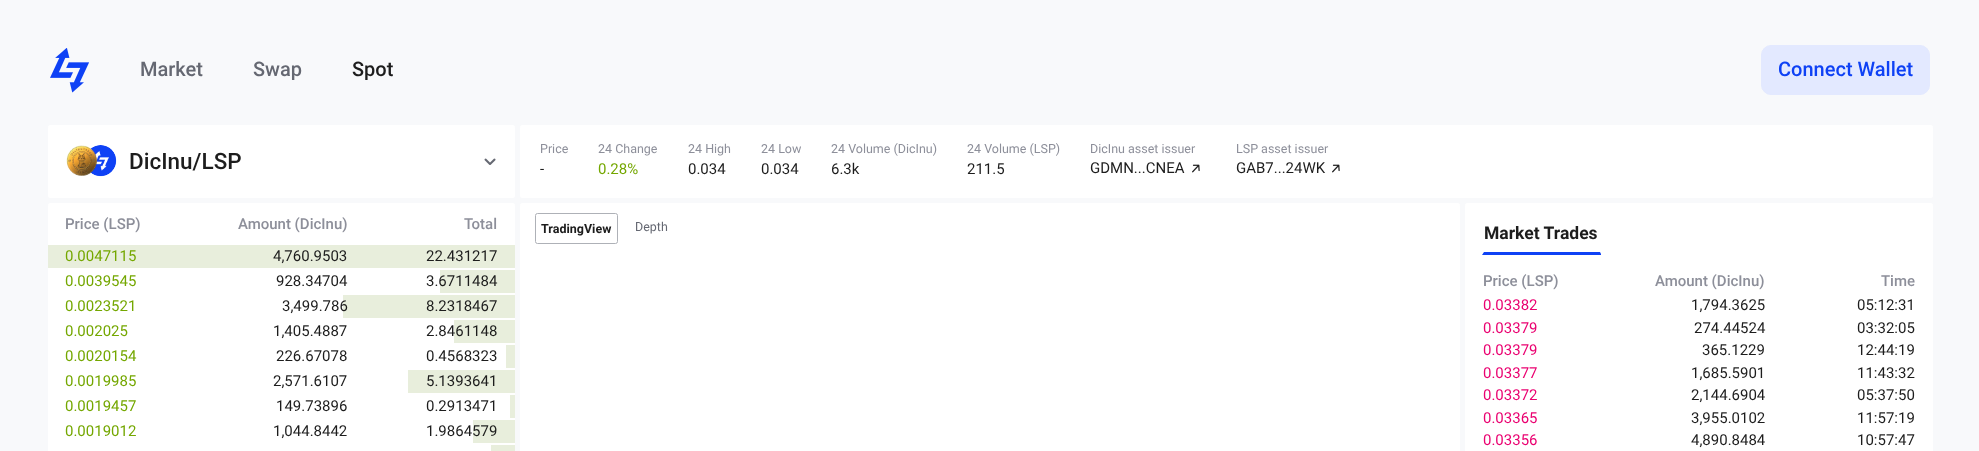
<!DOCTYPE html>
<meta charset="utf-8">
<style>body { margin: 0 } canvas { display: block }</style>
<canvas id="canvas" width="1979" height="451"></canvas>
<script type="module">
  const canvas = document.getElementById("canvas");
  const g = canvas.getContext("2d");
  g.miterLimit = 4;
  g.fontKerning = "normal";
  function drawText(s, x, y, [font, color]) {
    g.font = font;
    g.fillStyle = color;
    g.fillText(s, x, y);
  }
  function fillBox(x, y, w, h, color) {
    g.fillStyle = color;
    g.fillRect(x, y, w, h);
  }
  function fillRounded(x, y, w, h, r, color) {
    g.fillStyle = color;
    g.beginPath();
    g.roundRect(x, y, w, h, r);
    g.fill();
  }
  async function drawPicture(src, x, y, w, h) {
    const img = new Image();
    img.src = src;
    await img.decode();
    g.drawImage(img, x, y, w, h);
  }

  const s1 = ["500 20px Roboto", "#656872"];
  const s2 = ["500 20px Roboto", "#1D1D1D"];
  const s3 = ["500 20px Roboto", "#0E41F5"];
  const s4 = ["500 22.5px Roboto", "#1D1D1D"];
  const s5 = ["12.5px Roboto", "#8D8F9A"];
  const s6 = ["15px Roboto", "#1D1D1D"];
  const s7 = ["15px Roboto", "#74A700"];
  const s8 = ["500 15px Roboto", "#8D8F9A"];
  const s9 = ["bold 12.5px Roboto", "#1D1D1D"];
  const s10 = ["12.5px Roboto", "#656872"];
  const s11 = ["bold 17.5px Roboto", "#1D1D1D"];
  const s12 = ["15px Roboto", "#EA0070"];

  fillBox(0, 0, 1979, 451, "#F8F9FB");
  await drawPicture("pic1.png", 50, 48, 39, 45);
  drawText("Market", 140, 76, s1);
  drawText("Swap", 253, 76, s1);
  drawText("Spot", 352, 76, s2);
  g.fillStyle = "#E3E9FF";
  g.beginPath();
  g.roundRect(1761.5, 45.5, 168, 49, 9.5);
  g.fill();
  g.strokeStyle = "#E3E9FF";
  g.stroke();
  drawText("Connect Wallet", 1778, 76, s3);
  fillRounded(48, 125, 467, 73, 2.5, "#FFFFFF");
  await drawPicture("pic3.png", 90, 145, 27, 32);
  await drawPicture("pic2.png", 66, 145, 31, 31);
  drawText("DicInu/LSP", 129, 169, s4);
  await drawPicture("pic4.png", 484, 158, 12, 7);
  fillRounded(520, 125, 1413, 73, 2.5, "#FFFFFF");
  drawText("Price", 540, 153, s5);
  drawText("-", 540, 174, s6);
  drawText("24 Change", 598, 153, s5);
  drawText("0.28%", 598, 174, s7);
  drawText("24 High", 688, 153, s5);
  drawText("0.034", 688, 174, s6);
  drawText("24 Low", 761, 153, s5);
  drawText("0.034", 761, 174, s6);
  drawText("24 Volume (DicInu)", 831, 153, s5);
  drawText("6.3k", 831, 174, s6);
  drawText("24 Volume (LSP)", 967, 153, s5);
  drawText("211.5", 967, 174, s6);
  drawText("DicInu asset issuer", 1090, 153, s5);
  drawText("GDMN...CNEA", 1090, 173, s6);
  await drawPicture("pic5.png", 1192, 164, 8, 9);
  drawText("LSP asset issuer", 1236, 153, s5);
  drawText("GAB7...24WK", 1236, 173, s6);
  await drawPicture("pic5.png", 1332, 164, 8, 9);
  fillRounded(48, 203, 467, 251, 2.5, "#FFFFFF");
  drawText("Price (LSP)", 65, 229, s8);
  drawText("Amount (DicInu)", 238, 229, s8);
  drawText("Total", 464, 229, s8);
  fillBox(48, 245, 467, 23, "#E8EEDC");
  drawText("0.0047115", 65, 261, s7);
  drawText("4,760.9503", 273, 261, s6);
  drawText("22.431217", 426, 261, s6);
  fillBox(440, 270, 75, 23, "#E8EEDC");
  drawText("0.0039545", 65, 286, s7);
  drawText("928.34704", 276, 286, s6);
  drawText("3.6711484", 426, 286, s6);
  fillBox(343, 295, 172, 23, "#E8EEDC");
  drawText("0.0023521", 65, 311, s7);
  drawText("3,499.786", 282, 311, s6);
  drawText("8.2318467", 426, 311, s6);
  fillBox(454, 320, 61, 23, "#E8EEDC");
  drawText("0.002025", 65, 336, s7);
  drawText("1,405.4887", 273, 336, s6);
  drawText("2.8461148", 426, 336, s6);
  fillBox(506, 345, 9, 23, "#E8EEDC");
  drawText("0.0020154", 65, 361, s7);
  drawText("226.67078", 276, 361, s6);
  drawText("0.4568323", 426, 361, s6);
  fillBox(408, 370, 107, 23, "#E8EEDC");
  drawText("0.0019985", 65, 386, s7);
  drawText("2,571.6107", 273, 386, s6);
  drawText("5.1393641", 426, 386, s6);
  fillBox(510, 395, 5, 23, "#E8EEDC");
  drawText("0.0019457", 65, 411, s7);
  drawText("149.73896", 276, 411, s6);
  drawText("0.2913471", 426, 411, s6);
  fillBox(473, 420, 42, 23, "#E8EEDC");
  drawText("0.0019012", 65, 436, s7);
  drawText("1,044.8442", 273, 436, s6);
  drawText("1.9864579", 426, 436, s6);
  fillBox(491, 445, 24, 6, "#E8EEDC");
  fillRounded(520, 203, 940, 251, 2.5, "#FFFFFF");
  g.beginPath();
  g.roundRect(535.5, 213.5, 82, 30, 2);
  g.strokeStyle = "#AEB1B7";
  g.stroke();
  drawText("TradingView", 541, 233, s9);
  drawText("Depth", 635, 231, s10);
  fillRounded(1465, 203, 468, 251, 2.5, "#FFFFFF");
  g.fillStyle = "#0E41F5";
  g.beginPath();
  g.moveTo(1482, 255);
  g.lineTo(1601, 255);
  g.lineTo(1601, 254);
  g.lineTo(1600, 252);
  g.lineTo(1484, 252);
  g.closePath();
  g.fill();
  drawText("Market Trades", 1484, 239, s11);
  drawText("Price (LSP)", 1483, 286, s8);
  drawText("Amount (DicInu)", 1655, 286, s8);
  drawText("Time", 1881, 286, s8);
  drawText("0.03382", 1483, 310, s12);
  drawText("1,794.3625", 1691, 310, s6);
  drawText("05:12:31", 1857, 310, s6);
  drawText("0.03379", 1483, 333, s12);
  drawText("274.44524", 1694, 333, s6);
  drawText("03:32:05", 1857, 333, s6);
  drawText("0.03379", 1483, 355, s12);
  drawText("365.1229", 1702, 355, s6);
  drawText("12:44:19", 1857, 355, s6);
  drawText("0.03377", 1483, 378, s12);
  drawText("1,685.5901", 1691, 378, s6);
  drawText("11:43:32", 1857, 378, s6);
  drawText("0.03372", 1483, 400, s12);
  drawText("2,144.6904", 1691, 400, s6);
  drawText("05:37:50", 1857, 400, s6);
  drawText("0.03365", 1483, 423, s12);
  drawText("3,955.0102", 1691, 423, s6);
  drawText("11:57:19", 1857, 423, s6);
  drawText("0.03356", 1483, 445, s12);
  drawText("4,890.8484", 1691, 445, s6);
  drawText("10:57:47", 1857, 445, s6);
</script>
